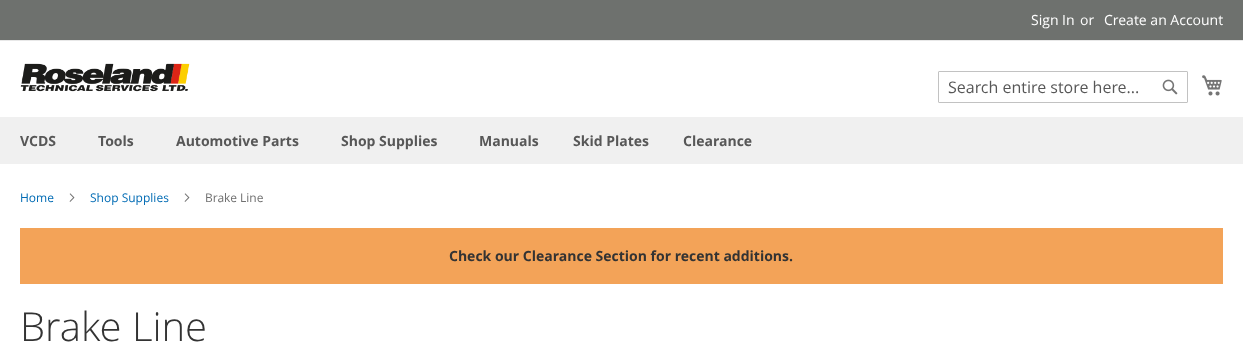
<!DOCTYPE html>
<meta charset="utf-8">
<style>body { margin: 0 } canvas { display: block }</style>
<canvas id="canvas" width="1243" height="349"></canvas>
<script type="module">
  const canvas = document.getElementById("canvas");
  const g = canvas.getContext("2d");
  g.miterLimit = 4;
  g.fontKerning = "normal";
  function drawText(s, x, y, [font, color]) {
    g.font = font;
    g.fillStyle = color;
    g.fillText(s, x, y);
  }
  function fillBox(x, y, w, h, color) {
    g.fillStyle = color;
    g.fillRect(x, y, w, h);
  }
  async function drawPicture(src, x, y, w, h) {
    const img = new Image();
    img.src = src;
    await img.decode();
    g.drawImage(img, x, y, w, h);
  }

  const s1 = ["14px Open Sans", "#FFFFFF"];
  const s2 = ["16px Open Sans", "#575757"];
  const s3 = ["bold 14px Open Sans", "#575757"];
  const s4 = ["12px Open Sans", "#006BB4"];
  const s5 = ["12px Open Sans", "#707070"];
  const s6 = ["bold 14px Open Sans", "#333333"];
  const s7 = ["300 40px Open Sans", "#333333"];

  fillBox(0, 0, 1243, 349, "#FFFFFF");
  fillBox(0, 0, 1243, 40, "#6E716E");
  fillBox(0, 40, 1243, 1, "#E8E8E8");
  drawText("Sign In", 1031, 25, s1);
  drawText("or", 1080, 25, s1);
  drawText("Create an Account", 1104, 25, s1);
  await drawPicture("pic1.png", 20, 63, 170, 29);
  g.beginPath();
  g.roundRect(938.5, 71.5, 249, 31, 0.5);
  g.strokeStyle = "#C2C2C2";
  g.stroke();
  drawText("Search entire store here...", 948, 93, s2);
  await drawPicture("pic2.png", 1162, 79, 16, 16);
  await drawPicture("pic3.png", 1202, 75, 20, 21);
  fillBox(0, 117, 1243, 47, "#F0F0F0");
  drawText("VCDS", 20, 146, s3);
  drawText("Tools", 98, 146, s3);
  drawText("Automotive Parts", 176, 146, s3);
  drawText("Shop Supplies", 341, 146, s3);
  drawText("Manuals", 479, 146, s3);
  drawText("Skid Plates", 573, 146, s3);
  drawText("Clearance", 683, 146, s3);
  drawText("Home", 20, 202, s4);
  await drawPicture("pic4.png", 69, 193, 6, 9);
  drawText("Shop Supplies", 90, 202, s4);
  await drawPicture("pic4.png", 184, 193, 6, 9);
  drawText("Brake Line", 205, 202, s5);
  fillBox(20, 228, 1203, 56, "#F3A358");
  drawText("Check our Clearance Section for recent additions.", 449, 261, s6);
  drawText("Brake Line", 20, 341, s7);
</script>
